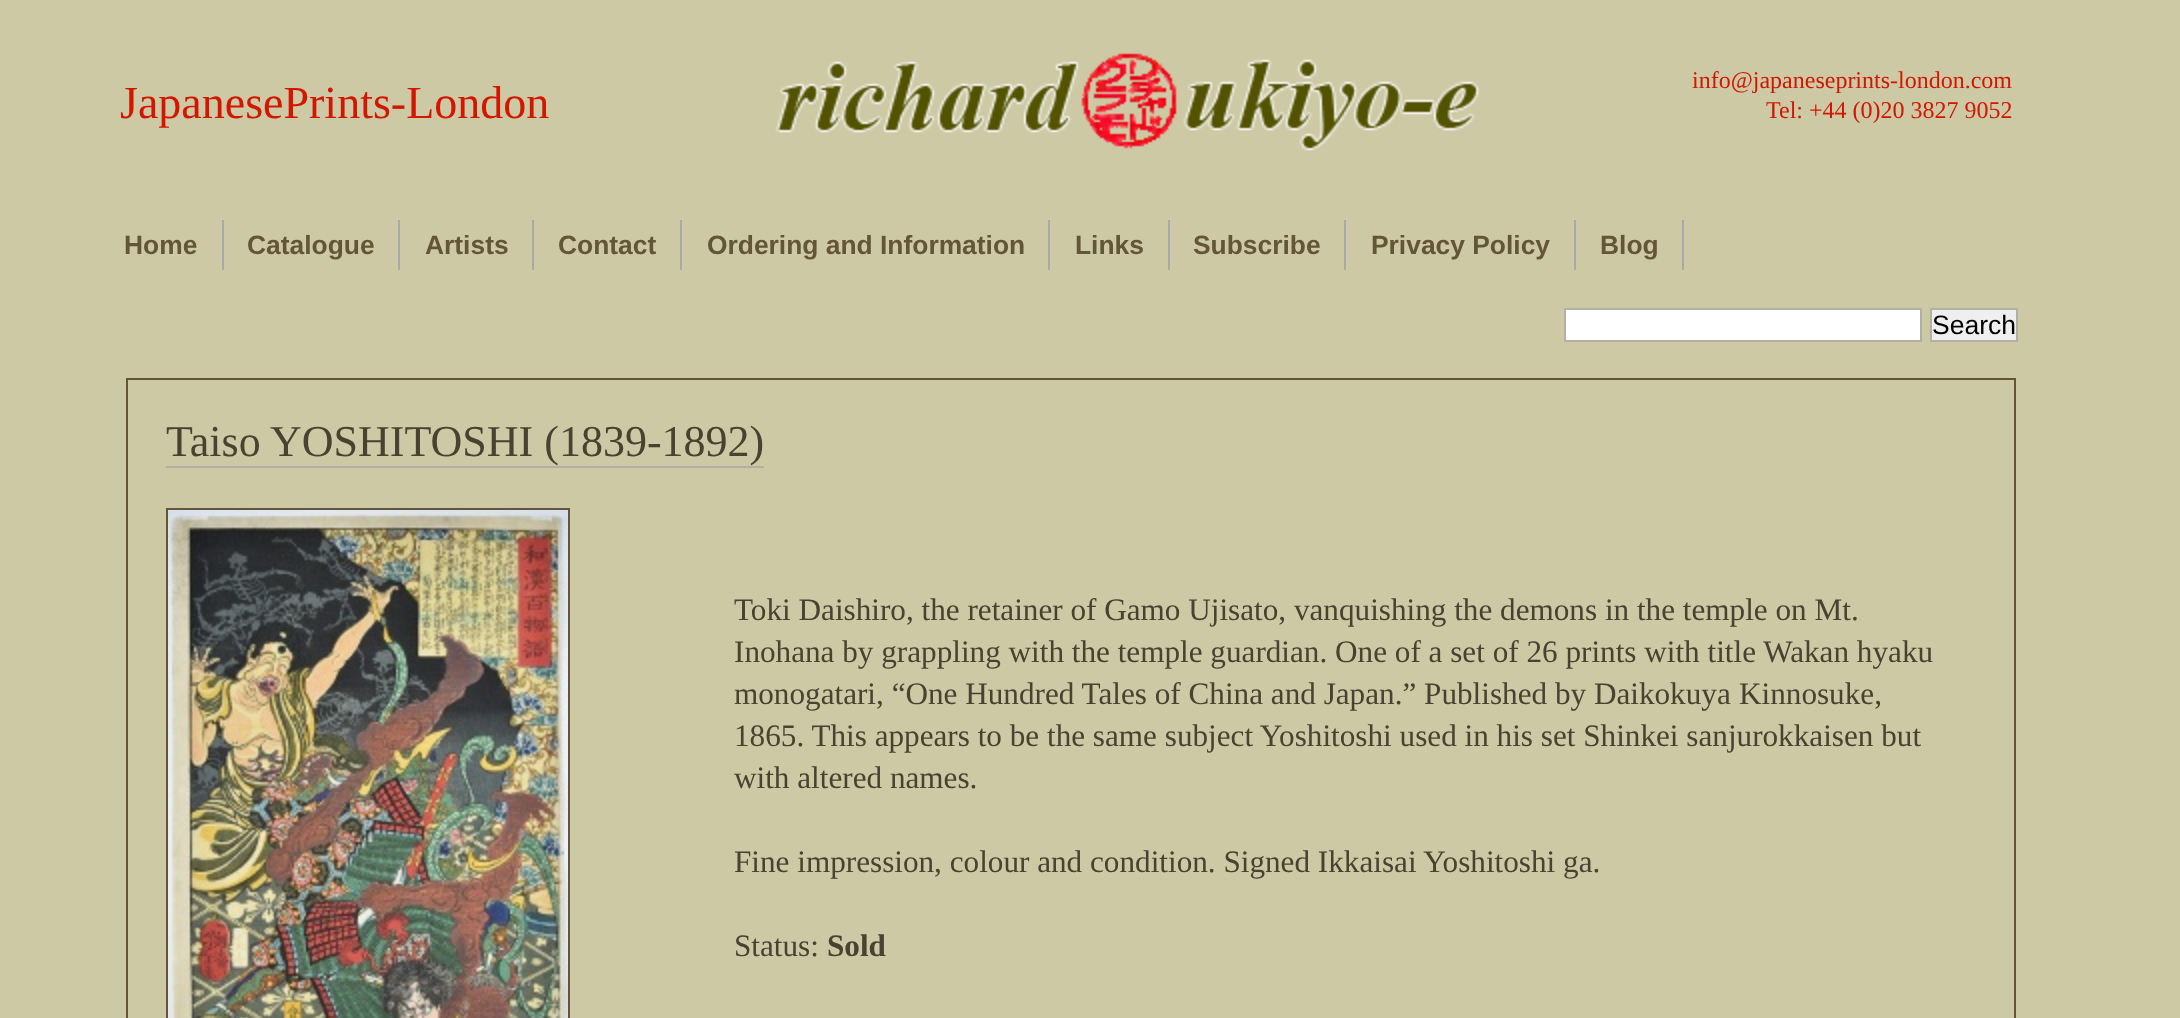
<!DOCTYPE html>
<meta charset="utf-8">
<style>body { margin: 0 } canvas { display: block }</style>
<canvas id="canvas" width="2180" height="1018"></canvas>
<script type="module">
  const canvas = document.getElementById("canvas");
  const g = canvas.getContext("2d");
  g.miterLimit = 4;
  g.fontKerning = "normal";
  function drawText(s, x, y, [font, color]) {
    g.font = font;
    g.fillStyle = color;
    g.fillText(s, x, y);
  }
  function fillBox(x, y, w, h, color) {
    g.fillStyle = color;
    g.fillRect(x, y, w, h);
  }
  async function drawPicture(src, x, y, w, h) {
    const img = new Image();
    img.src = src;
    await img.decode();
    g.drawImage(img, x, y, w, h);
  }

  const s1 = ["46px Liberation Serif", "#D21600"];
  const s2 = ["24px Liberation Serif", "#D21600"];
  const s3 = ["bold 26.4px Liberation Sans", "#635537"];
  const s4 = ["26.5px Liberation Sans", "#000000"];
  const s5 = ["44px Liberation Serif", "#4A4131"];
  const s6 = ["31.2px Liberation Serif", "#4A4131"];
  const s7 = ["bold 31.2px Liberation Serif", "#4A4131"];

  fillBox(0, 0, 2180, 1018, "#CDC9A5");
  await drawPicture("pic1.png", 775, 53, 705, 98);
  drawText("JapanesePrints-London", 120, 118, s1);
  drawText("info@japaneseprints-london.com", 1692, 88, s2);
  drawText("Tel: +44 (0)20 3827 9052", 1766, 118, s2);
  fillBox(222, 220, 2, 50, "#A9A9A9");
  drawText("Home", 124, 254, s3);
  fillBox(398, 220, 2, 50, "#A9A9A9");
  drawText("Catalogue", 247, 254, s3);
  fillBox(532, 220, 2, 50, "#A9A9A9");
  drawText("Artists", 425, 254, s3);
  fillBox(680, 220, 2, 50, "#A9A9A9");
  drawText("Contact", 558, 254, s3);
  fillBox(1048, 220, 2, 50, "#A9A9A9");
  drawText("Ordering and Information", 707, 254, s3);
  fillBox(1168, 220, 2, 50, "#A9A9A9");
  drawText("Links", 1075, 254, s3);
  fillBox(1344, 220, 2, 50, "#A9A9A9");
  drawText("Subscribe", 1193, 254, s3);
  fillBox(1574, 220, 2, 50, "#A9A9A9");
  drawText("Privacy Policy", 1371, 254, s3);
  fillBox(1682, 220, 2, 50, "#A9A9A9");
  drawText("Blog", 1600, 254, s3);
  g.fillStyle = "#FFFFFF";
  g.beginPath();
  g.rect(1565, 309, 356, 32);
  g.fill();
  g.strokeStyle = "#B2B0A4";
  g.lineWidth = 2;
  g.stroke();
  g.fillStyle = "#EFEFEF";
  g.beginPath();
  g.rect(1931, 309, 86, 32);
  g.fill();
  g.stroke();
  drawText("Search", 1932, 334, s4);
  g.strokeStyle = "#635537";
  g.strokeRect(127, 379, 1888, 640);
  drawText("Taiso YOSHITOSHI (1839-1892)", 166, 456, s5);
  fillBox(166, 466, 598, 2, "#B2B0A4");
  g.strokeRect(167, 509, 402, 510);
  await drawPicture("pic2.png", 168, 510, 400, 508);
  drawText("Toki Daishiro, the retainer of Gamo Ujisato, vanquishing the demons in the temple on Mt.", 734, 620, s6);
  drawText("Inohana by grappling with the temple guardian. One of a set of 26 prints with title Wakan hyaku", 734, 662, s6);
  drawText("monogatari, “One Hundred Tales of China and Japan.” Published by Daikokuya", 734, 704, s6);
  drawText("Kinnosuke,", 1739, 704, s6);
  drawText("1865. This appears to be the same subject Yoshitoshi used in his set Shinkei sanjurokkaisen but", 734, 746, s6);
  drawText("with altered names.", 734, 788, s6);
  drawText("Fine impression, colour and condition. Signed Ikkaisai Yoshitoshi ga.", 734, 872, s6);
  drawText("Status:", 734, 956, s6);
  drawText("Sold", 827, 956, s7);
</script>
